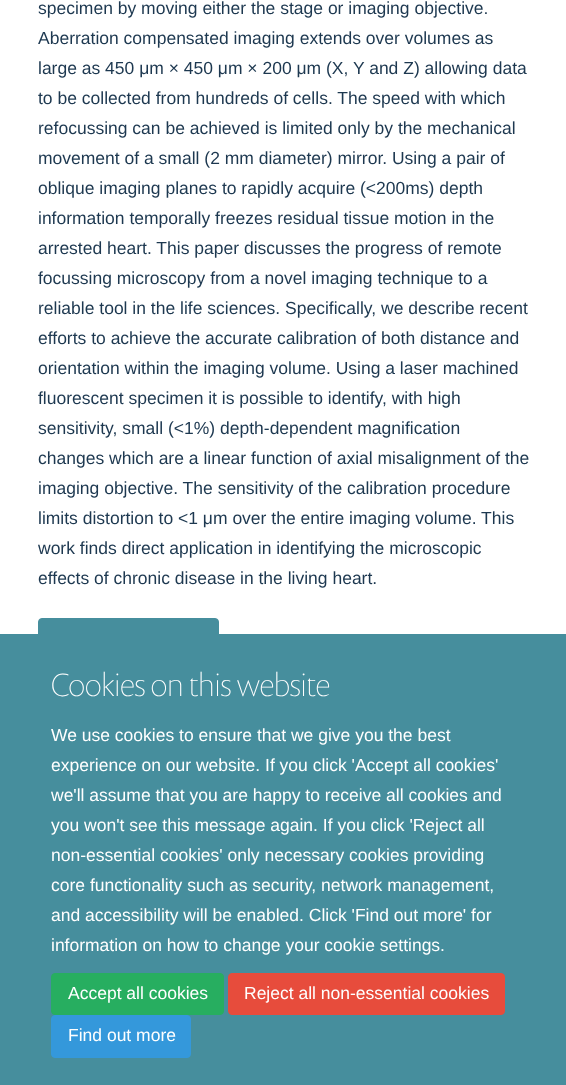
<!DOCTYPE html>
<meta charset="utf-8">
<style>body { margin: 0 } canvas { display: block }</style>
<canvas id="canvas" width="566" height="1085"></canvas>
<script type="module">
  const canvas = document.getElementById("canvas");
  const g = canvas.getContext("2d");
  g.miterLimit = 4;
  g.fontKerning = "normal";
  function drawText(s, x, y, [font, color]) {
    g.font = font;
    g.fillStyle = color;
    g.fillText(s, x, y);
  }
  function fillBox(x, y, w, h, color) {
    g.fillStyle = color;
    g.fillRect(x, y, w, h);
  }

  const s1 = ["17.5px Liberation Sans", "#1D3850"];
  const s2 = ["100 32.5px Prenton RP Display", "#FFFFFF"];
  const s3 = ["17.5px Liberation Sans", "#FFFFFF"];

  fillBox(0, 0, 566, 1085, "#FFFFFF");
  drawText("specimen by moving either the stage or imaging objective.", 38, 14, s1);
  drawText("Aberration compensated imaging extends over volumes as", 38, 44, s1);
  drawText("large as 450 μm × 450 μm × 200 μm (X, Y and Z) allowing data", 38, 74, s1);
  drawText("to be collected from hundreds of cells. The speed with which", 38, 104, s1);
  drawText("refocussing can be achieved is limited only by the mechanical", 38, 134, s1);
  drawText("movement of a small (2 mm diameter) mirror. Using a pair of", 38, 164, s1);
  drawText("oblique imaging planes to rapidly acquire (<200ms) depth", 38, 194, s1);
  drawText("information temporally freezes residual tissue motion in the", 38, 224, s1);
  drawText("arrested heart. This paper discusses the progress of remote", 38, 254, s1);
  drawText("focussing microscopy from a novel imaging technique to a", 38, 284, s1);
  drawText("reliable tool in the life sciences. Specifically, we describe recent", 38, 314, s1);
  drawText("efforts to achieve the accurate calibration of both distance and", 38, 344, s1);
  drawText("orientation within the imaging volume. Using a laser machined", 38, 374, s1);
  drawText("fluorescent specimen it is possible to identify, with high", 38, 404, s1);
  drawText("sensitivity, small (<1%) depth-dependent magnification", 38, 434, s1);
  drawText("changes which are a linear function of axial misalignment of the", 38, 464, s1);
  drawText("imaging objective. The sensitivity of the calibration procedure", 38, 494, s1);
  drawText("limits distortion to <1 μm over the entire imaging volume. This", 38, 524, s1);
  drawText("work finds direct application in identifying the microscopic", 38, 554, s1);
  drawText("effects of chronic disease in the living heart.", 38, 584, s1);
  g.fillStyle = "#468E9D";
  g.beginPath();
  g.roundRect(38.5, 618.5, 180, 41, 3.5);
  g.fill();
  g.strokeStyle = "#468E9D";
  g.stroke();
  fillBox(0, 634, 566, 451, "#468E9D");
  drawText("Cookies on this website", 51, 696, s2);
  drawText("We use cookies to ensure that we give you the best", 51, 741, s3);
  drawText("experience on our website. If you click 'Accept all cookies'", 51, 771, s3);
  drawText("we'll assume that you are happy to receive all cookies and", 51, 801, s3);
  drawText("you won't see this message again. If you click 'Reject all", 51, 831, s3);
  drawText("non-essential cookies' only necessary cookies providing", 51, 861, s3);
  drawText("core functionality such as security, network management,", 51, 891, s3);
  drawText("and accessibility will be enabled. Click 'Find out more' for", 51, 921, s3);
  drawText("information on how to change your cookie settings.", 51, 951, s3);
  g.fillStyle = "#27AE60";
  g.beginPath();
  g.roundRect(51.5, 973.5, 172, 41, 3.5);
  g.fill();
  g.strokeStyle = "#27AE60";
  g.stroke();
  drawText("Accept all cookies", 68, 999, s3);
  g.fillStyle = "#E74C3C";
  g.beginPath();
  g.roundRect(228.5, 973.5, 276, 41, 3.5);
  g.fill();
  g.strokeStyle = "#E74C3C";
  g.stroke();
  drawText("Reject all non-essential cookies", 244, 999, s3);
  g.fillStyle = "#3498DB";
  g.beginPath();
  g.roundRect(51.5, 1015.5, 139, 42, 3.5);
  g.fill();
  g.strokeStyle = "#3498DB";
  g.stroke();
  drawText("Find out more", 68, 1041, s3);
</script>
